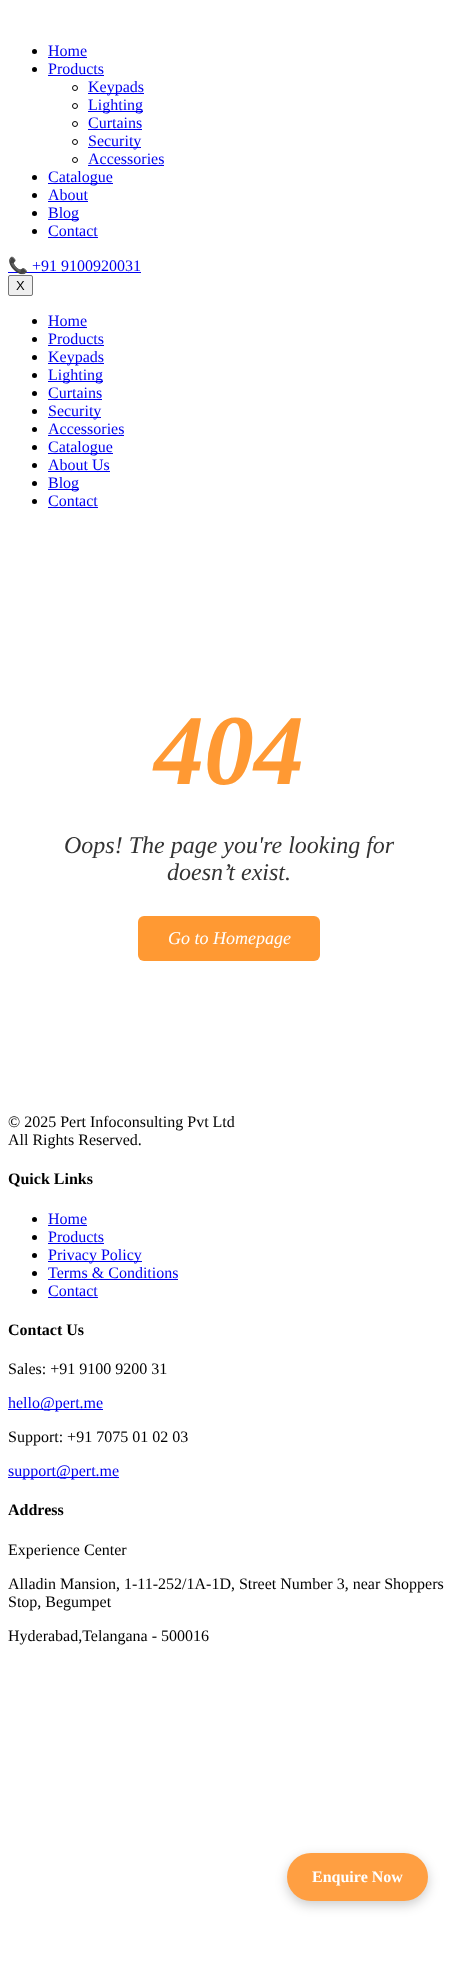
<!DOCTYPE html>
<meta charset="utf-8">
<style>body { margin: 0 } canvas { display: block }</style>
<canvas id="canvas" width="458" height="1961"></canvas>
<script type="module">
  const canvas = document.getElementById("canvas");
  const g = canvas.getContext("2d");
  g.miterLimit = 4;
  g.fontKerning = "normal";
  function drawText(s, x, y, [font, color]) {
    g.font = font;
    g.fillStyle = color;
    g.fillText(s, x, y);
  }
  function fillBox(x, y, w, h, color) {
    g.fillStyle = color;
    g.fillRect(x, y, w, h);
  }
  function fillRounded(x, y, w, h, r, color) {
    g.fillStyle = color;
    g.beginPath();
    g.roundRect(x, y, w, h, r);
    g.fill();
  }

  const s1 = ["16px Liberation Serif", "#0000EE"];
  const s2 = ["16px Noto Color Emoji", "#0000EE"];
  const s3 = ["13px Liberation Sans", "#000000"];
  const s4 = ["italic bold 100px Liberation Serif", "#FF9933"];
  const s5 = ["italic 24px Liberation Serif", "#333333"];
  const s6 = ["italic 18px Liberation Serif", "#FFFFFF"];
  const s7 = ["16px Liberation Serif", "#000000"];
  const s8 = ["bold 16px Liberation Serif", "#000000"];
  const s9 = ["bold 16px Liberation Serif", "#FFFFFF"];

  fillBox(0, 0, 458, 1961, "#FFFFFF");
  g.fillStyle = "#000000";
  g.beginPath();
  g.arc(34.5, 51.5, 2.5, 0, Math.PI * 2);
  g.fill();
  drawText("Home", 48, 56, s1);
  fillBox(48, 57, 39, 1, "#0000EE");
  g.fillStyle = "#000000";
  g.beginPath();
  g.arc(34.5, 69.5, 2.5, 0, Math.PI * 2);
  g.fill();
  drawText("Products", 48, 74, s1);
  fillBox(48, 75, 56, 1, "#0000EE");
  g.beginPath();
  g.arc(75, 88, 2.5, 0, Math.PI * 2);
  g.strokeStyle = "#000000";
  g.stroke();
  fillBox(88, 93, 56, 1, "#0000EE");
  drawText("Keypads", 88, 92, s1);
  g.beginPath();
  g.arc(75, 106, 2.5, 0, Math.PI * 2);
  g.stroke();
  fillBox(88, 111, 55, 1, "#0000EE");
  drawText("Lighting", 88, 110, s1);
  g.beginPath();
  g.arc(75, 124, 2.5, 0, Math.PI * 2);
  g.stroke();
  drawText("Curtains", 88, 128, s1);
  fillBox(88, 129, 54, 1, "#0000EE");
  g.beginPath();
  g.arc(75, 142, 2.5, 0, Math.PI * 2);
  g.stroke();
  fillBox(88, 147, 53, 1, "#0000EE");
  drawText("Security", 88, 146, s1);
  g.beginPath();
  g.arc(75, 160, 2.5, 0, Math.PI * 2);
  g.stroke();
  drawText("Accessories", 88, 164, s1);
  fillBox(88, 165, 76, 1, "#0000EE");
  g.fillStyle = "#000000";
  g.beginPath();
  g.arc(34.5, 177.5, 2.5, 0, Math.PI * 2);
  g.fill();
  fillBox(48, 183, 65, 1, "#0000EE");
  drawText("Catalogue", 48, 182, s1);
  g.fillStyle = "#000000";
  g.beginPath();
  g.arc(34.5, 195.5, 2.5, 0, Math.PI * 2);
  g.fill();
  drawText("About", 48, 200, s1);
  fillBox(48, 201, 40, 1, "#0000EE");
  g.fillStyle = "#000000";
  g.beginPath();
  g.arc(34.5, 213.5, 2.5, 0, Math.PI * 2);
  g.fill();
  fillBox(48, 219, 31, 1, "#0000EE");
  drawText("Blog", 48, 218, s1);
  g.fillStyle = "#000000";
  g.beginPath();
  g.arc(34.5, 231.5, 2.5, 0, Math.PI * 2);
  g.fill();
  drawText("Contact", 48, 236, s1);
  fillBox(48, 237, 50, 1, "#0000EE");
  fillBox(8, 272, 133, 1, "#0000EE");
  drawText("📞", 8, 271, s2);
  drawText("+91 9100920031", 32, 271, s1);
  g.fillStyle = "#EFEFEF";
  g.beginPath();
  g.roundRect(8.5, 275.5, 24, 20, 1.5);
  g.fill();
  g.strokeStyle = "#767676";
  g.stroke();
  drawText("X", 16, 290, s3);
  g.beginPath();
  g.arc(34.5, 321.5, 2.5, 0, Math.PI * 2);
  g.fill();
  drawText("Home", 48, 326, s1);
  fillBox(48, 327, 39, 1, "#0000EE");
  g.fillStyle = "#000000";
  g.beginPath();
  g.arc(34.5, 339.5, 2.5, 0, Math.PI * 2);
  g.fill();
  drawText("Products", 48, 344, s1);
  fillBox(48, 345, 56, 1, "#0000EE");
  g.fillStyle = "#000000";
  g.beginPath();
  g.arc(34.5, 357.5, 2.5, 0, Math.PI * 2);
  g.fill();
  fillBox(48, 363, 56, 1, "#0000EE");
  drawText("Keypads", 48, 362, s1);
  g.fillStyle = "#000000";
  g.beginPath();
  g.arc(34.5, 375.5, 2.5, 0, Math.PI * 2);
  g.fill();
  fillBox(48, 381, 55, 1, "#0000EE");
  drawText("Lighting", 48, 380, s1);
  g.fillStyle = "#000000";
  g.beginPath();
  g.arc(34.5, 393.5, 2.5, 0, Math.PI * 2);
  g.fill();
  drawText("Curtains", 48, 398, s1);
  fillBox(48, 399, 54, 1, "#0000EE");
  g.fillStyle = "#000000";
  g.beginPath();
  g.arc(34.5, 411.5, 2.5, 0, Math.PI * 2);
  g.fill();
  fillBox(48, 417, 53, 1, "#0000EE");
  drawText("Security", 48, 416, s1);
  g.fillStyle = "#000000";
  g.beginPath();
  g.arc(34.5, 429.5, 2.5, 0, Math.PI * 2);
  g.fill();
  drawText("Accessories", 48, 434, s1);
  fillBox(48, 435, 76, 1, "#0000EE");
  g.fillStyle = "#000000";
  g.beginPath();
  g.arc(34.5, 447.5, 2.5, 0, Math.PI * 2);
  g.fill();
  fillBox(48, 453, 65, 1, "#0000EE");
  drawText("Catalogue", 48, 452, s1);
  g.fillStyle = "#000000";
  g.beginPath();
  g.arc(34.5, 465.5, 2.5, 0, Math.PI * 2);
  g.fill();
  drawText("About Us", 48, 470, s1);
  fillBox(48, 471, 62, 1, "#0000EE");
  g.fillStyle = "#000000";
  g.beginPath();
  g.arc(34.5, 483.5, 2.5, 0, Math.PI * 2);
  g.fill();
  fillBox(48, 489, 31, 1, "#0000EE");
  drawText("Blog", 48, 488, s1);
  g.fillStyle = "#000000";
  g.beginPath();
  g.arc(34.5, 501.5, 2.5, 0, Math.PI * 2);
  g.fill();
  drawText("Contact", 48, 506, s1);
  fillBox(48, 507, 50, 1, "#0000EE");
  drawText("404", 154, 784, s4);
  drawText("Oops! The page you're looking for", 64, 853, s5);
  drawText("doesn’t exist.", 167, 880, s5);
  fillRounded(138, 916, 182, 45, 6, "#FF9933");
  drawText("Go to Homepage", 168, 944, s6);
  drawText("© 2025 Pert Infoconsulting Pvt Ltd", 8, 1127, s7);
  drawText("All Rights Reserved.", 8, 1145, s7);
  drawText("Quick Links", 8, 1184, s8);
  g.beginPath();
  g.arc(34.5, 1219.5, 2.5, 0, Math.PI * 2);
  g.fill();
  drawText("Home", 48, 1224, s1);
  fillBox(48, 1225, 39, 1, "#0000EE");
  g.fillStyle = "#000000";
  g.beginPath();
  g.arc(34.5, 1237.5, 2.5, 0, Math.PI * 2);
  g.fill();
  drawText("Products", 48, 1242, s1);
  fillBox(48, 1243, 56, 1, "#0000EE");
  g.fillStyle = "#000000";
  g.beginPath();
  g.arc(34.5, 1255.5, 2.5, 0, Math.PI * 2);
  g.fill();
  fillBox(48, 1261, 94, 1, "#0000EE");
  drawText("Privacy Policy", 48, 1260, s1);
  g.fillStyle = "#000000";
  g.beginPath();
  g.arc(34.5, 1273.5, 2.5, 0, Math.PI * 2);
  g.fill();
  drawText("Terms & Conditions", 48, 1278, s1);
  fillBox(48, 1279, 130, 1, "#0000EE");
  g.fillStyle = "#000000";
  g.beginPath();
  g.arc(34.5, 1291.5, 2.5, 0, Math.PI * 2);
  g.fill();
  drawText("Contact", 48, 1296, s1);
  fillBox(48, 1297, 50, 1, "#0000EE");
  drawText("Contact Us", 8, 1335, s8);
  drawText("Sales: +91 9100 9200 31", 8, 1374, s7);
  fillBox(8, 1409, 95, 1, "#0000EE");
  drawText("hello@pert.me", 8, 1408, s1);
  drawText("Support: +91 7075 01 02 03", 8, 1442, s7);
  fillBox(8, 1477, 111, 1, "#0000EE");
  drawText("support@pert.me", 8, 1476, s1);
  drawText("Address", 8, 1515, s8);
  drawText("Experience Center", 8, 1555, s7);
  drawText("Alladin Mansion, 1-11-252/1A-1D, Street Number 3, near Shoppers", 8, 1589, s7);
  drawText("Stop, Begumpet", 8, 1607, s7);
  drawText("Hyderabad,Telangana - 500016", 8, 1641, s7);
  g.fillStyle = "rgba(0, 0, 0, 0.2)";
  g.filter = "blur(6px)";
  g.beginPath();
  g.roundRect(287, 1857, 141, 48, 24);
  g.fill();
  g.filter = "none";
  fillRounded(287, 1853, 141, 48, 24, "#FF9F42");
  drawText("Enquire Now", 312, 1882, s9);
</script>
